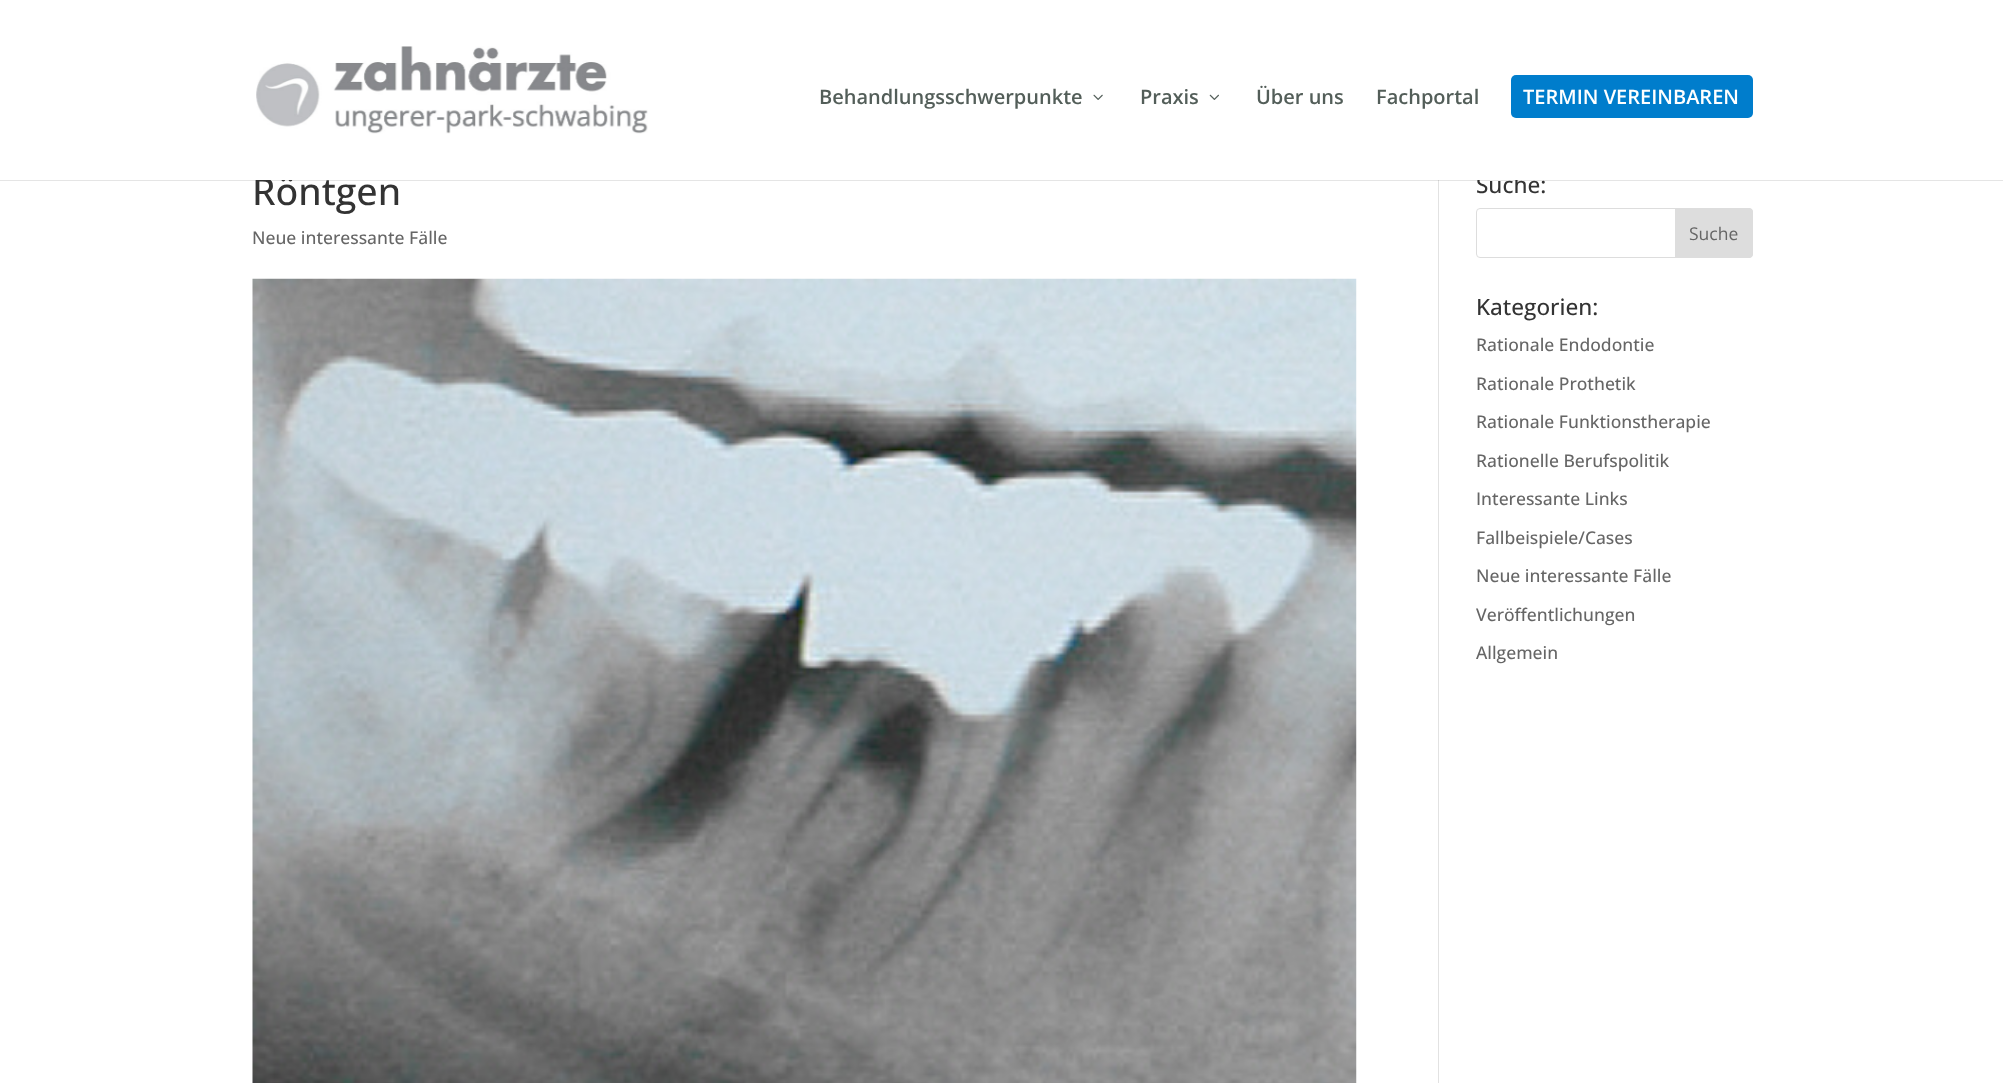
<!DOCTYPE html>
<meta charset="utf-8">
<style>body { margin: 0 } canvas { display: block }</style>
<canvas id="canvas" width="2003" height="1083"></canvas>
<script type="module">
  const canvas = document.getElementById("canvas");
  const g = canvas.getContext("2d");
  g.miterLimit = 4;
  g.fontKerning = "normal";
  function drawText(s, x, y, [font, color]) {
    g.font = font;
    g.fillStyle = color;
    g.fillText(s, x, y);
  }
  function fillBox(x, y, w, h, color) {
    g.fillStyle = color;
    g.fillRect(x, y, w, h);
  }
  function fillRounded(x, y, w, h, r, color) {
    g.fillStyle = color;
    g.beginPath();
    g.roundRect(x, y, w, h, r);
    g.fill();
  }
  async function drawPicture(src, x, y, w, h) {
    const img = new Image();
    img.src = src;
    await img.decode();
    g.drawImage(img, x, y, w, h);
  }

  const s1 = ["500 37.5px Open Sans", "#333333"];
  const s2 = ["500 22.5px Open Sans", "#333333"];
  const s3 = ["600 20px Open Sans", "#535E59"];
  const s4 = ["600 20px Open Sans", "#FFFFFF"];
  const s5 = ["500 17.5px Open Sans", "#666666"];
  const s6 = ["17.5px Open Sans", "#666666"];

  fillBox(0, 0, 2003, 1083, "#FFFFFF");
  fillBox(1438, 180, 1, 903, "#E2E2E2");
  g.fillStyle = "rgba(0, 0, 0, 0.1)";
  g.beginPath();
  g.moveTo(0, 180);
  g.lineTo(0, 181);
  g.lineTo(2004, 181);
  g.lineTo(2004, 1);
  g.lineTo(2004, 180);
  g.closePath();
  g.fill();
  drawText("Röntgen", 252, 205, s1);
  drawText("Suche:", 1476, 193, s2);
  fillBox(255, 175, 1263, 5, "#FFFFFF");
  await drawPicture("pic1.png", 256, 46, 392, 88);
  drawText("Behandlungsschwerpunkte", 819, 104, s3);
  await drawPicture("pic2.png", 1093, 94, 10, 6);
  drawText("Praxis", 1140, 104, s3);
  await drawPicture("pic3.png", 1209, 94, 10, 6);
  drawText("Über uns", 1256, 104, s3);
  drawText("Fachportal", 1376, 104, s3);
  fillRounded(1511, 75, 242, 43, 5, "#007DCC");
  drawText("TERMIN VEREINBAREN", 1523, 104, s4);
  drawText("Neue interessante Fälle", 252, 244, s5);
  await drawPicture("pic4.png", 252, 278, 1105, 805);
  g.beginPath();
  g.roundRect(1476.5, 208.5, 276, 49, 3.5);
  g.strokeStyle = "#DDDDDD";
  g.stroke();
  g.fillStyle = "#DDDDDD";
  g.beginPath();
  g.roundRect(1675.5, 208.5, 77, 49, [0, 3.5, 3.5, 0]);
  g.fill();
  g.stroke();
  drawText("Suche", 1689, 240, s6);
  drawText("Kategorien:", 1476, 315, s2);
  drawText("Rationale Endodontie", 1476, 351, s5);
  drawText("Rationale Prothetik", 1476, 390, s5);
  drawText("Rationale Funktionstherapie", 1476, 428, s5);
  drawText("Rationelle Berufspolitik", 1476, 467, s5);
  drawText("Interessante Links", 1476, 505, s5);
  drawText("Fallbeispiele/Cases", 1476, 544, s5);
  drawText("Neue interessante Fälle", 1476, 582, s5);
  drawText("Veröffentlichungen", 1476, 621, s5);
  drawText("Allgemein", 1476, 659, s5);
</script>
